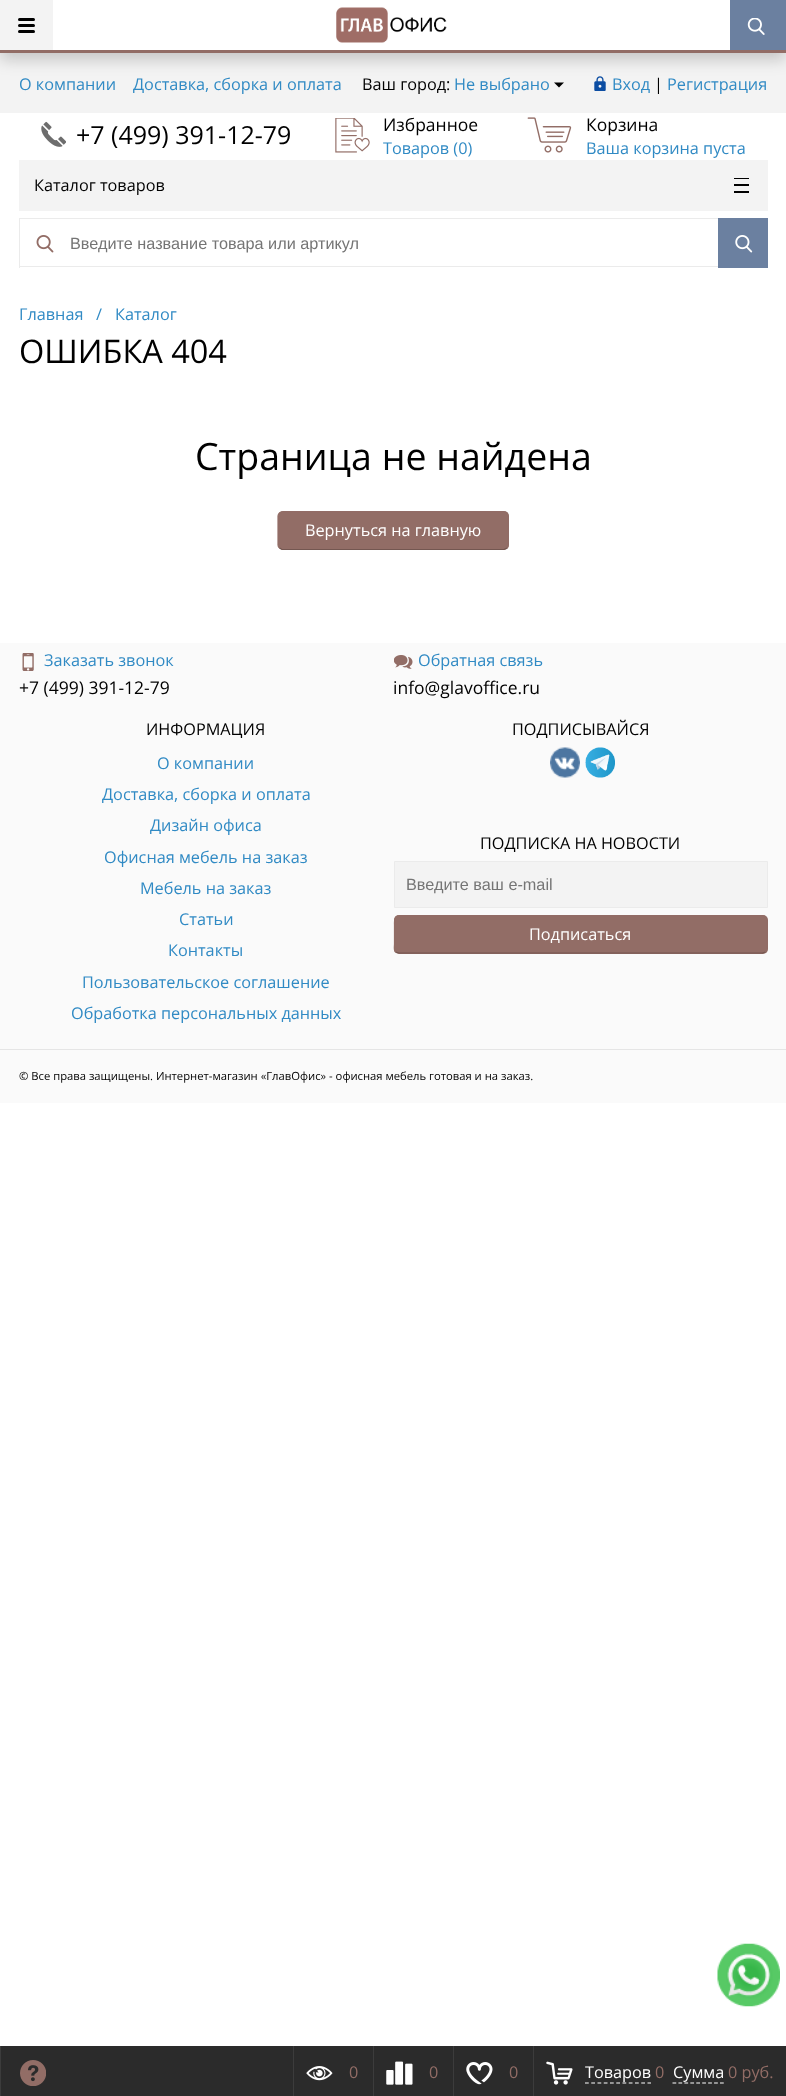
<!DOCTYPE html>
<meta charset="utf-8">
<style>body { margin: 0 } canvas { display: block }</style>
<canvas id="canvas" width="786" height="2096"></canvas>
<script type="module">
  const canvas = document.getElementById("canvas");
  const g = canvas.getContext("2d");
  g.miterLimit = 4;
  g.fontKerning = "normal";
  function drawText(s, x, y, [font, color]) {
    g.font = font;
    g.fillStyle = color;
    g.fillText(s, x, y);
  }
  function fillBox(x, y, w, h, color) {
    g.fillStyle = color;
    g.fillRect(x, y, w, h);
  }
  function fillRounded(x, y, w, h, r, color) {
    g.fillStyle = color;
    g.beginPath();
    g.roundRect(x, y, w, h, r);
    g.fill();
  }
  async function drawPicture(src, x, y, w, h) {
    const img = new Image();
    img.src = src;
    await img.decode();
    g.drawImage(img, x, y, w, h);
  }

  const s1 = ["16.25px Open Sans", "#308AC4"];
  const s2 = ["16.25px Open Sans", "#000000"];
  const s3 = ["25px Open Sans", "#000000"];
  const s4 = ["17.5px Open Sans", "#000000"];
  const s5 = ["16.25px Liberation Sans", "#757575"];
  const s6 = ["32.5px Open Sans", "#000000"];
  const s7 = ["37.5px Open Sans", "#000000"];
  const s8 = ["16.25px Open Sans", "#FFFFFF"];
  const s9 = ["11.25px Open Sans", "#000000"];
  const s10 = ["16.25px Open Sans", "#926D66"];

  fillBox(0, 0, 786, 2096, "#FFFFFF");
  fillBox(0, 53, 786, 60, "#F3F3F3");
  g.fillStyle = "#000000";
  g.beginPath();
  g.moveTo(554, 82.5);
  g.lineTo(559, 87.5);
  g.lineTo(564, 82.5);
  g.closePath();
  g.fill("evenodd");
  await drawPicture("pic3.png", 594, 76, 12, 15);
  g.fillStyle = "rgba(0, 0, 0, 0.18)";
  g.filter = "blur(7.5px)";
  g.beginPath();
  g.rect(0, 8, 786, 52);
  g.fill();
  g.filter = "none";
  fillBox(53, 0, 677, 50, "#FFFFFF");
  fillBox(0, 50, 786, 3, "#926D66");
  fillBox(0, 0, 53, 50, "#F3F3F3");
  fillRounded(18, 18, 17, 3, 1.5, "#000000");
  fillRounded(18, 24, 17, 3, 1.5, "#000000");
  fillRounded(18, 30, 17, 3, 1.5, "#000000");
  await drawPicture("pic1.png", 336, 7, 111, 36);
  fillBox(730, 0, 56, 50, "#6B80A0");
  await drawPicture("pic2.png", 747, 18, 18, 17);
  drawText("О компании", 19, 90, s1);
  drawText("Доставка, сборка и оплата", 133, 90, s1);
  drawText("Ваш город:", 362, 90, s2);
  drawText("Не выбрано", 454, 90, s1);
  drawText("Вход", 612, 90, s1);
  drawText("|", 654, 90, s2);
  drawText("Регистрация", 667, 90, s1);
  await drawPicture("pic4.png", 41, 121, 25, 26);
  drawText("+7 (499) 391-12-79", 76, 144, s3);
  await drawPicture("pic5.png", 335, 118, 35, 35);
  drawText("Избранное", 383, 131, s4);
  drawText("Товаров (0)", 383, 154, s1);
  await drawPicture("pic6.png", 527, 117, 45, 36);
  drawText("Корзина", 586, 131, s4);
  drawText("Ваша корзина пуста", 586, 154, s1);
  fillBox(19, 160, 749, 51, "#F3F3F3");
  drawText("Каталог товаров", 34, 191, s2);
  fillBox(734, 178, 15, 1, "#000000");
  fillBox(734, 184, 15, 2, "#000000");
  fillBox(734, 191, 15, 2, "#000000");
  fillBox(19, 218, 699, 1, "#EBEBEB");
  fillBox(19, 266, 699, 1, "#EBEBEB");
  fillBox(19, 218, 1, 50, "#EBEBEB");
  await drawPicture("pic7.png", 36, 235, 18, 18);
  fillBox(718, 218, 50, 50, "#6B80A0");
  await drawPicture("pic8.png", 735, 235, 18, 18);
  drawText("Введите название товара или артикул", 70, 249, s5);
  drawText("Главная", 19, 320, s1);
  drawText("/", 96, 320, s1);
  drawText("Каталог", 115, 320, s1);
  drawText("ОШИБКА 404", 19, 363, s6);
  drawText("Страница не найдена", 195, 470, s7);
  fillRounded(278, 511, 231, 39, 5, "#926D66");
  g.beginPath();
  g.moveTo(507, 548);
  g.lineTo(504, 549.5);
  g.lineTo(282, 549.5);
  g.lineTo(279.5, 548);
  g.strokeStyle = "#745751";
  g.lineWidth = 1.2;
  g.stroke();
  g.beginPath();
  g.moveTo(279.5, 548);
  g.bezierCurveTo(278.5, 547.5, 278, 546, 278, 545);
  g.lineTo(278, 516);
  g.bezierCurveTo(278, 515, 278.5, 514, 279.5, 513);
  g.bezierCurveTo(280, 512.5, 281.5, 512, 282.5, 512);
  g.lineTo(504, 512);
  g.bezierCurveTo(505, 512, 506, 512.5, 507, 513);
  g.bezierCurveTo(507.5, 514, 508, 515, 508, 516);
  g.lineTo(508, 545);
  g.bezierCurveTo(508, 546, 507.5, 547.5, 507, 548);
  g.strokeStyle = "#926D66";
  g.stroke();
  drawText("Вернуться на главную", 305, 536, s8);
  fillBox(0, 643, 786, 460, "#FAFAFA");
  await drawPicture("pic9.png", 22, 653, 12, 18);
  drawText("Заказать звонок", 44, 666, s1);
  drawText("+7 (499) 391-12-79", 19, 694, s4);
  await drawPicture("pic10.png", 394, 655, 19, 14);
  drawText("Обратная связь", 418, 666, s1);
  drawText("info@glavoffice.ru", 393, 694, s4);
  drawText("ИНФОРМАЦИЯ", 146, 735, s2);
  drawText("О компании", 157, 769, s1);
  drawText("Доставка, сборка и оплата", 102, 800, s1);
  drawText("Дизайн офиса", 150, 831, s1);
  drawText("Офисная мебель на заказ", 104, 863, s1);
  drawText("Мебель на заказ", 140, 894, s1);
  drawText("Статьи", 179, 925, s1);
  drawText("Контакты", 168, 956, s1);
  drawText("Пользовательское соглашение", 82, 988, s1);
  drawText("Обработка персональных данных", 71, 1019, s1);
  drawText("ПОДПИСЫВАЙСЯ", 512, 735, s2);
  await drawPicture("pic11.png", 550, 747, 30, 31);
  await drawPicture("pic12.png", 585, 747, 30, 31);
  drawText("ПОДПИСКА НА НОВОСТИ", 480, 849, s2);
  g.fillStyle = "#F3F3F3";
  g.beginPath();
  g.rect(394.5, 861.5, 373, 46);
  g.fill();
  g.strokeStyle = "#EBEBEB";
  g.lineWidth = 1;
  g.stroke();
  drawText("Введите ваш e-mail", 406, 890, s5);
  fillRounded(394, 915, 374, 39, 5, "#926D66");
  g.beginPath();
  g.moveTo(765.5, 952);
  g.lineTo(762.5, 953);
  g.lineTo(399, 953);
  g.lineTo(395.5, 952);
  g.strokeStyle = "#745751";
  g.lineWidth = 1.2;
  g.stroke();
  g.beginPath();
  g.moveTo(395.5, 952);
  g.bezierCurveTo(393.5, 950, 394.5, 946.5, 394.5, 944);
  g.lineTo(394.5, 925);
  g.bezierCurveTo(394.5, 921.5, 393.5, 917, 397.5, 916);
  g.lineTo(764, 916);
  g.bezierCurveTo(767.5, 917, 767, 921.5, 767, 925);
  g.lineTo(767, 944);
  g.bezierCurveTo(767, 946.5, 767.5, 950, 765.5, 952);
  g.strokeStyle = "#926D66";
  g.stroke();
  drawText("Подписаться", 529, 940, s8);
  fillBox(0, 1049, 786, 1, "#E5E5E5");
  drawText("© Все права защищены. Интернет-магазин «ГлавОфис» - офисная мебель готовая и на заказ.", 19, 1080, s9);
  await drawPicture("pic13.png", 717, 1943, 63, 64);
  fillBox(1, 2046, 785, 50, "#2B2B2B");
  fillBox(0, 2046, 1, 50, "#3C3C3C");
  await drawPicture("pic14.png", 20, 2060, 26, 26);
  fillBox(293, 2046, 1, 50, "#3C3C3C");
  await drawPicture("pic15.png", 306, 2066, 27, 15);
  drawText("0", 349, 2078, s10);
  fillBox(373, 2046, 1, 50, "#3C3C3C");
  await drawPicture("pic16.png", 386, 2061, 27, 24);
  drawText("0", 429, 2078, s10);
  fillBox(453, 2046, 1, 50, "#3C3C3C");
  await drawPicture("pic17.png", 466, 2062, 27, 23);
  drawText("0", 509, 2078, s10);
  fillBox(533, 2046, 1, 50, "#3C3C3C");
  await drawPicture("pic18.png", 546, 2061, 27, 24);
  drawText("Товаров", 585, 2078, s8);
  g.beginPath();
  g.moveTo(585, 2083);
  g.lineTo(651, 2083);
  g.strokeStyle = "#FFFFFF";
  g.setLineDash([3.75, 2.5]);
  g.stroke();
  drawText("0", 655, 2078, s10);
  drawText("Сумма", 673, 2078, s8);
  g.beginPath();
  g.moveTo(672.5, 2083);
  g.lineTo(724, 2083);
  g.setLineDash([3.75, 2.19]);
  g.stroke();
  drawText("0 руб.", 728, 2078, s10);
</script>
